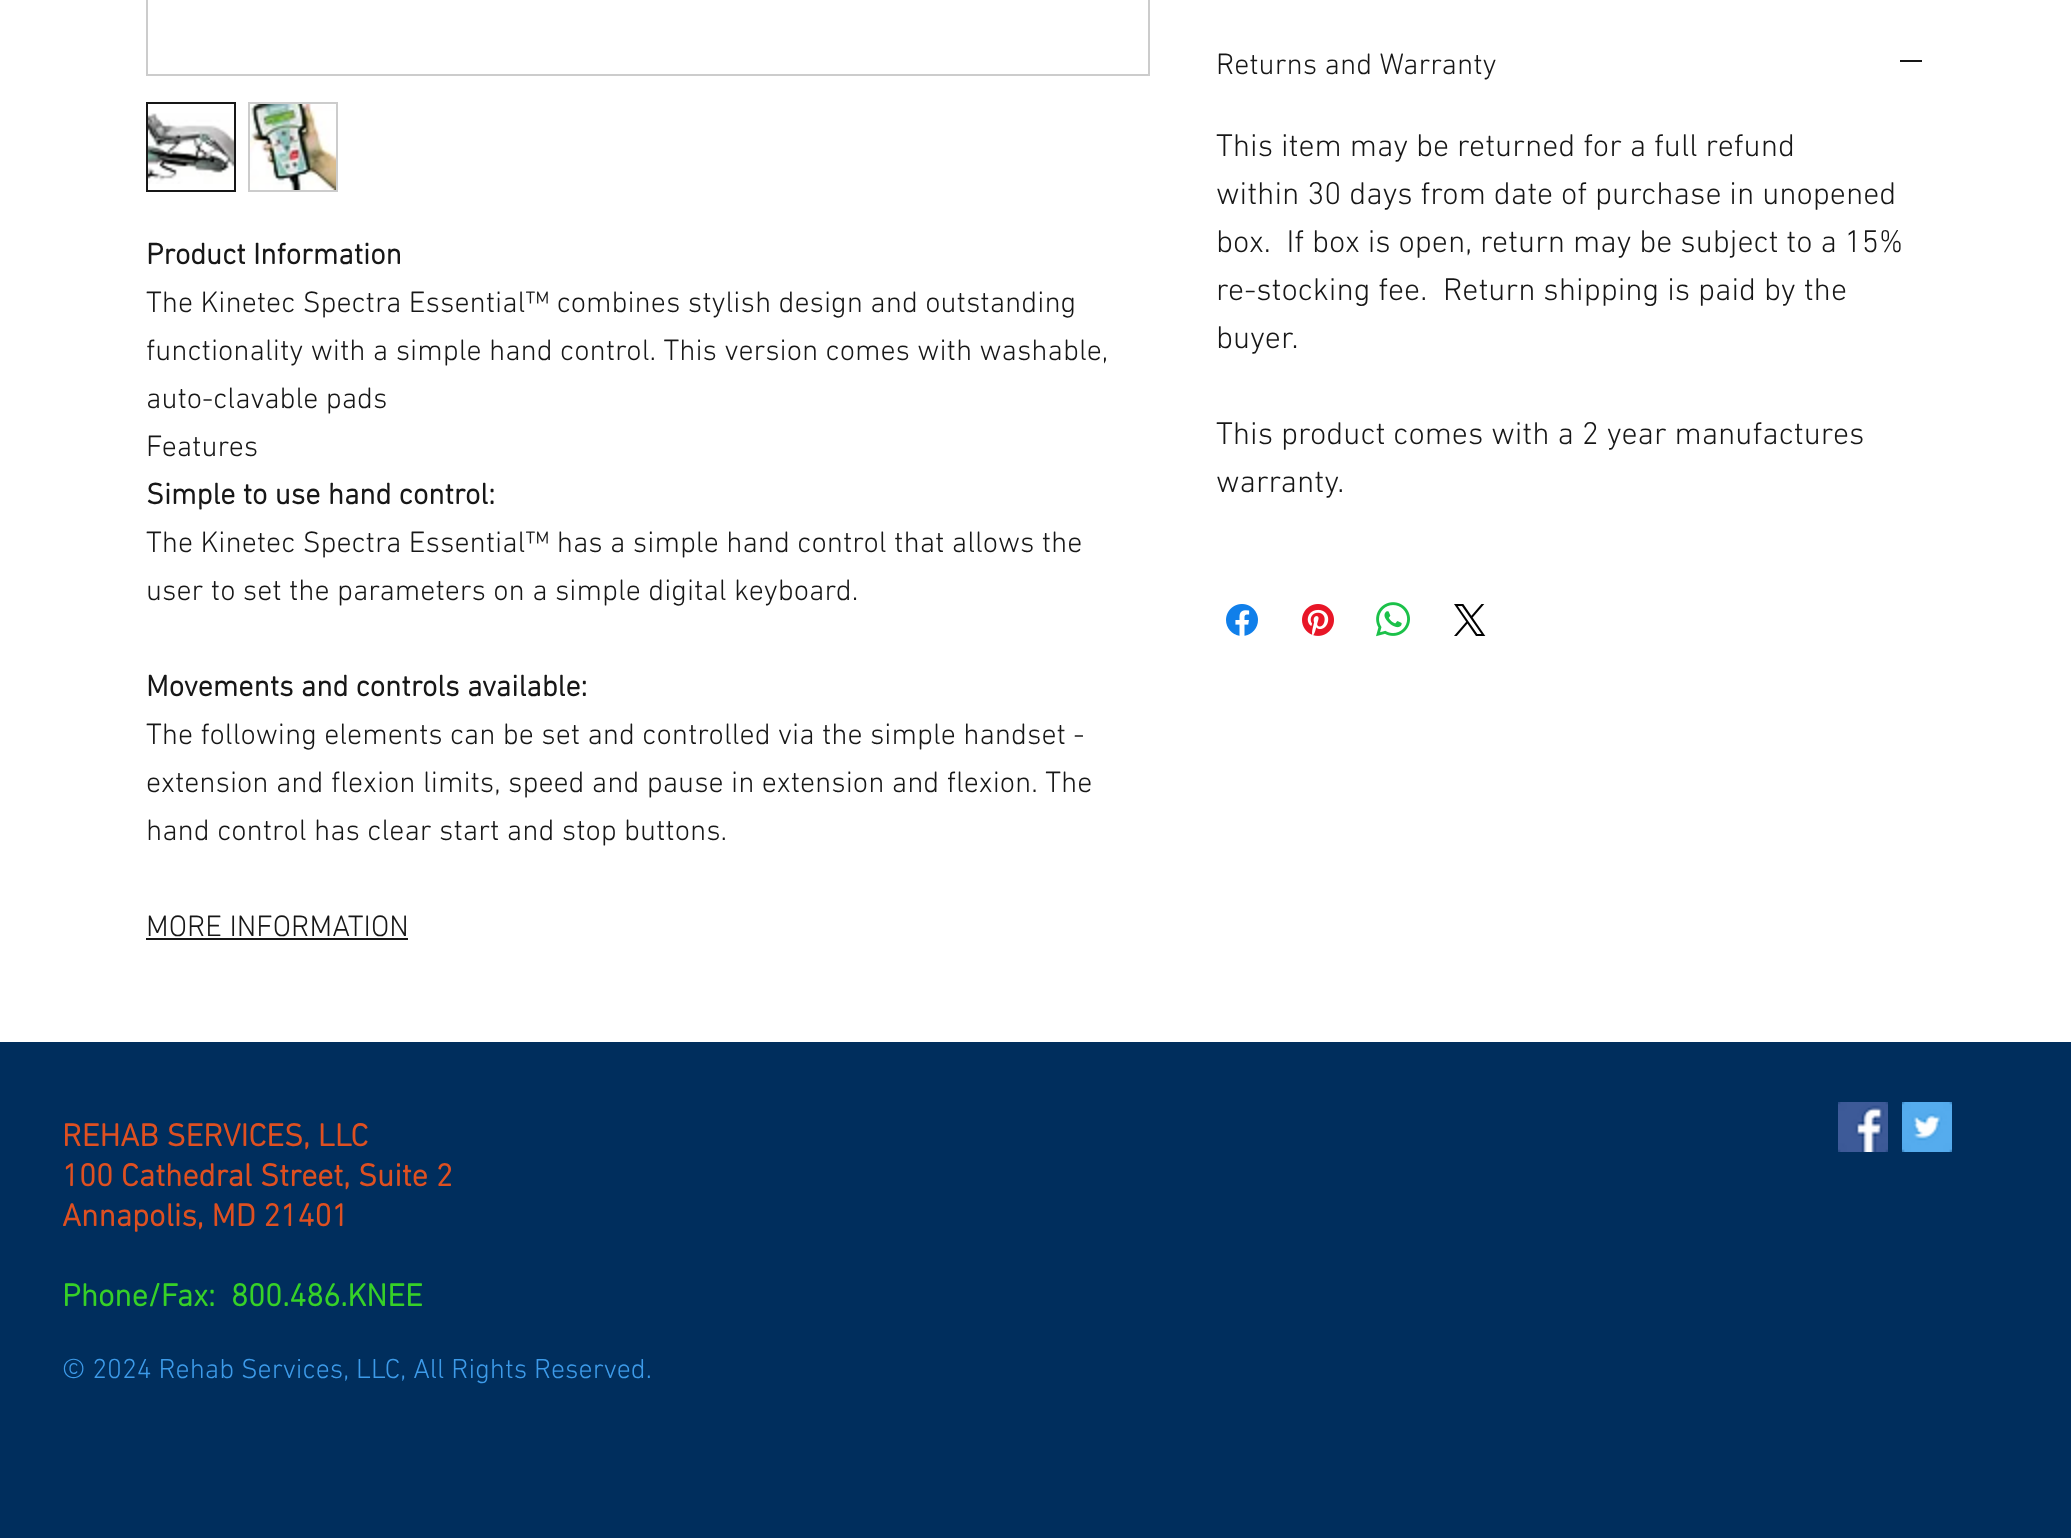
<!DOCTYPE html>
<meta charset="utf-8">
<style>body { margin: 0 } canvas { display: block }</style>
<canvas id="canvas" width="2071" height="1538"></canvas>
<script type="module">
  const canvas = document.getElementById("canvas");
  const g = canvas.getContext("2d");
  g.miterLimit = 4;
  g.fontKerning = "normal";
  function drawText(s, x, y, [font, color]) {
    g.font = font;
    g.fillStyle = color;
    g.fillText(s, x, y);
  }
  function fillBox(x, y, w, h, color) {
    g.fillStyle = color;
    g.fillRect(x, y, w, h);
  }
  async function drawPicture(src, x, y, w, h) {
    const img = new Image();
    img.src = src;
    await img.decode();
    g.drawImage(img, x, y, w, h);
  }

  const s1 = ["bold 30px 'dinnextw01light'", "#171717"];
  const s2 = ["300 30px 'dinnextw01light'", "#171717"];
  const s3 = ["300 32px 'dinnextw01light'", "#171717"];
  const s4 = ["bold 32px 'dinnextw01light'", "#DE5021"];
  const s5 = ["bold 32px 'dinnextw01light'", "#36D128"];
  const s6 = ["300 28px 'dinnextw01light'", "#3D9BE9"];

  fillBox(0, 0, 2071, 1538, "#FFFFFF");
  g.strokeStyle = "#CCCCCC";
  g.lineWidth = 2;
  g.strokeRect(147, -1, 1002, 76);
  g.strokeStyle = "#171717";
  g.strokeRect(147, 103, 88, 88);
  await drawPicture("pic1.png", 148, 113, 86, 71);
  g.strokeStyle = "#CCCCCC";
  g.strokeRect(249, 103, 88, 88);
  await drawPicture("pic2.png", 250, 104, 86, 86);
  drawText("Product Information", 146, 264, s1);
  drawText("The Kinetec Spectra Essential™ combines stylish design and outstanding", 146, 312, s2);
  drawText("functionality with a simple hand control. This version comes with washable,", 146, 360, s2);
  drawText("auto-clavable pads", 146, 408, s2);
  drawText("Features", 146, 456, s2);
  drawText("Simple to use hand control:", 146, 504, s1);
  drawText("The Kinetec Spectra Essential™ has a simple hand control that allows the", 146, 552, s2);
  drawText("user to set the parameters on a simple digital keyboard.", 146, 600, s2);
  drawText("Movements and controls available:", 146, 696, s1);
  drawText("The following elements can be set and controlled via the simple handset -", 146, 744, s2);
  drawText("extension and flexion limits, speed and pause in extension and flexion. The", 146, 792, s2);
  drawText("hand control has clear start and stop buttons.", 146, 840, s2);
  drawText("MORE INFORMATION", 146, 936, s2);
  fillBox(146, 938, 262, 2, "#171717");
  drawText("Returns and Warranty", 1216, 74, s2);
  fillBox(1900, 60, 22, 2, "#171717");
  drawText("This item may be returned for a full refund", 1216, 156, s3);
  drawText("within 30 days from date of purchase in unopened", 1216, 204, s3);
  drawText("box.  If box is open, return may be subject to a 15%", 1216, 252, s3);
  drawText("re-stocking fee.  Return shipping is paid by the", 1216, 300, s3);
  drawText("buyer.", 1216, 348, s3);
  drawText("This product comes with a 2 year manufactures", 1216, 444, s3);
  drawText("warranty.", 1216, 492, s3);
  await drawPicture("pic3.png", 1226, 604, 32, 32);
  await drawPicture("pic4.png", 1302, 604, 32, 32);
  await drawPicture("pic5.png", 1376, 602, 34, 35);
  await drawPicture("pic6.png", 1454, 604, 32, 32);
  fillBox(0, 1042, 2071, 496, "#002E5D");
  drawText("REHAB SERVICES, LLC", 62, 1146, s4);
  drawText("100 Cathedral Street, Suite 2", 62, 1186, s4);
  drawText("Annapolis, MD 21401", 62, 1226, s4);
  drawText("Phone/Fax:  800.486.KNEE", 62, 1306, s5);
  drawText("© 2024 Rehab Services, LLC, All Rights Reserved.", 62, 1378, s6);
  await drawPicture("pic7.png", 1838, 1102, 50, 50);
  await drawPicture("pic8.png", 1902, 1102, 50, 50);
</script>
